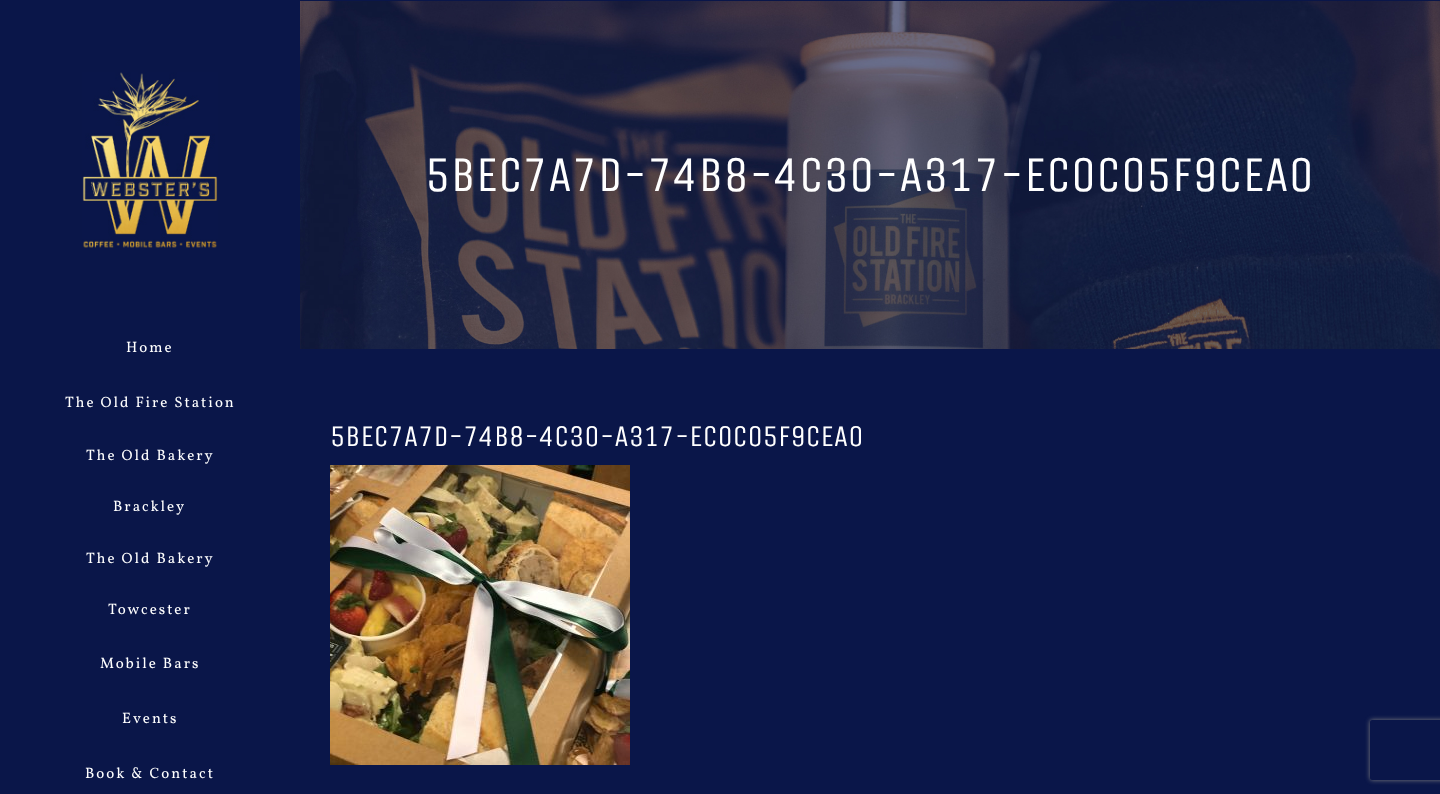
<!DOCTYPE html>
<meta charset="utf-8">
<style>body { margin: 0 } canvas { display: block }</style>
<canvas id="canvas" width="1440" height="794"></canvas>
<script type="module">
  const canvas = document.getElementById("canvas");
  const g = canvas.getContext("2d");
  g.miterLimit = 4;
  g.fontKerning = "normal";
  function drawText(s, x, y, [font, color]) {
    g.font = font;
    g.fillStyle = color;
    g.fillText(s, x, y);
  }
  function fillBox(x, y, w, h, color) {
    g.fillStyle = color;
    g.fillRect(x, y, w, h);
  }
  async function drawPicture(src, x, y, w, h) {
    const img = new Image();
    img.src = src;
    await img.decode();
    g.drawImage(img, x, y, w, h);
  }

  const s1 = ["50px Unica One", "#FFFFFF"];
  const s2 = ["15px Vollkorn", "#FFFFFF"];
  const s3 = ["30px Unica One", "#FFFFFF"];

  fillBox(0, 0, 1440, 794, "#0A1649");
  await drawPicture("pic1.png", 300, 1, 1140, 348);
  drawText("5BEC7A7D-74B8-4C30-A317-EC0C05F9CEA0", 425, 191, s1);
  await drawPicture("pic2.png", 82, 72, 136, 176);
  g.letterSpacing = "2px";
  drawText("Home", 126, 352, s2);
  drawText("The Old Fire Station", 65, 407, s2);
  drawText("The Old Bakery", 86, 460, s2);
  drawText("Brackley", 113, 511, s2);
  drawText("The Old Bakery", 86, 563, s2);
  drawText("Towcester", 108, 614, s2);
  drawText("Mobile Bars", 100, 668, s2);
  drawText("Events", 122, 723, s2);
  drawText("Book & Contact", 85, 778, s2);
  g.letterSpacing = "0px";
  drawText("5BEC7A7D-74B8-4C30-A317-EC0C05F9CEA0", 330, 446, s3);
  await drawPicture("pic3.png", 330, 465, 300, 300);
  g.save();
  g.beginPath();
  g.moveTo(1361, 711);
  g.lineTo(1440, 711);
  g.lineTo(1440, 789);
  g.lineTo(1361, 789);
  g.closePath();
  g.moveTo(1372, 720);
  g.lineTo(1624, 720);
  g.bezierCurveTo(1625, 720, 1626, 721, 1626, 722);
  g.lineTo(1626, 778);
  g.bezierCurveTo(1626, 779, 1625, 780, 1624, 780);
  g.lineTo(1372, 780);
  g.bezierCurveTo(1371, 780, 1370, 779, 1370, 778);
  g.lineTo(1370, 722);
  g.bezierCurveTo(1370, 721, 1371, 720, 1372, 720);
  g.closePath();
  g.clip("evenodd");
  g.fillStyle = "#808080";
  g.filter = "blur(2.5px)";
  g.beginPath();
  g.roundRect(1370, 720, 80, 60, 2);
  g.fill();
  g.filter = "none";
  g.restore();
</script>
